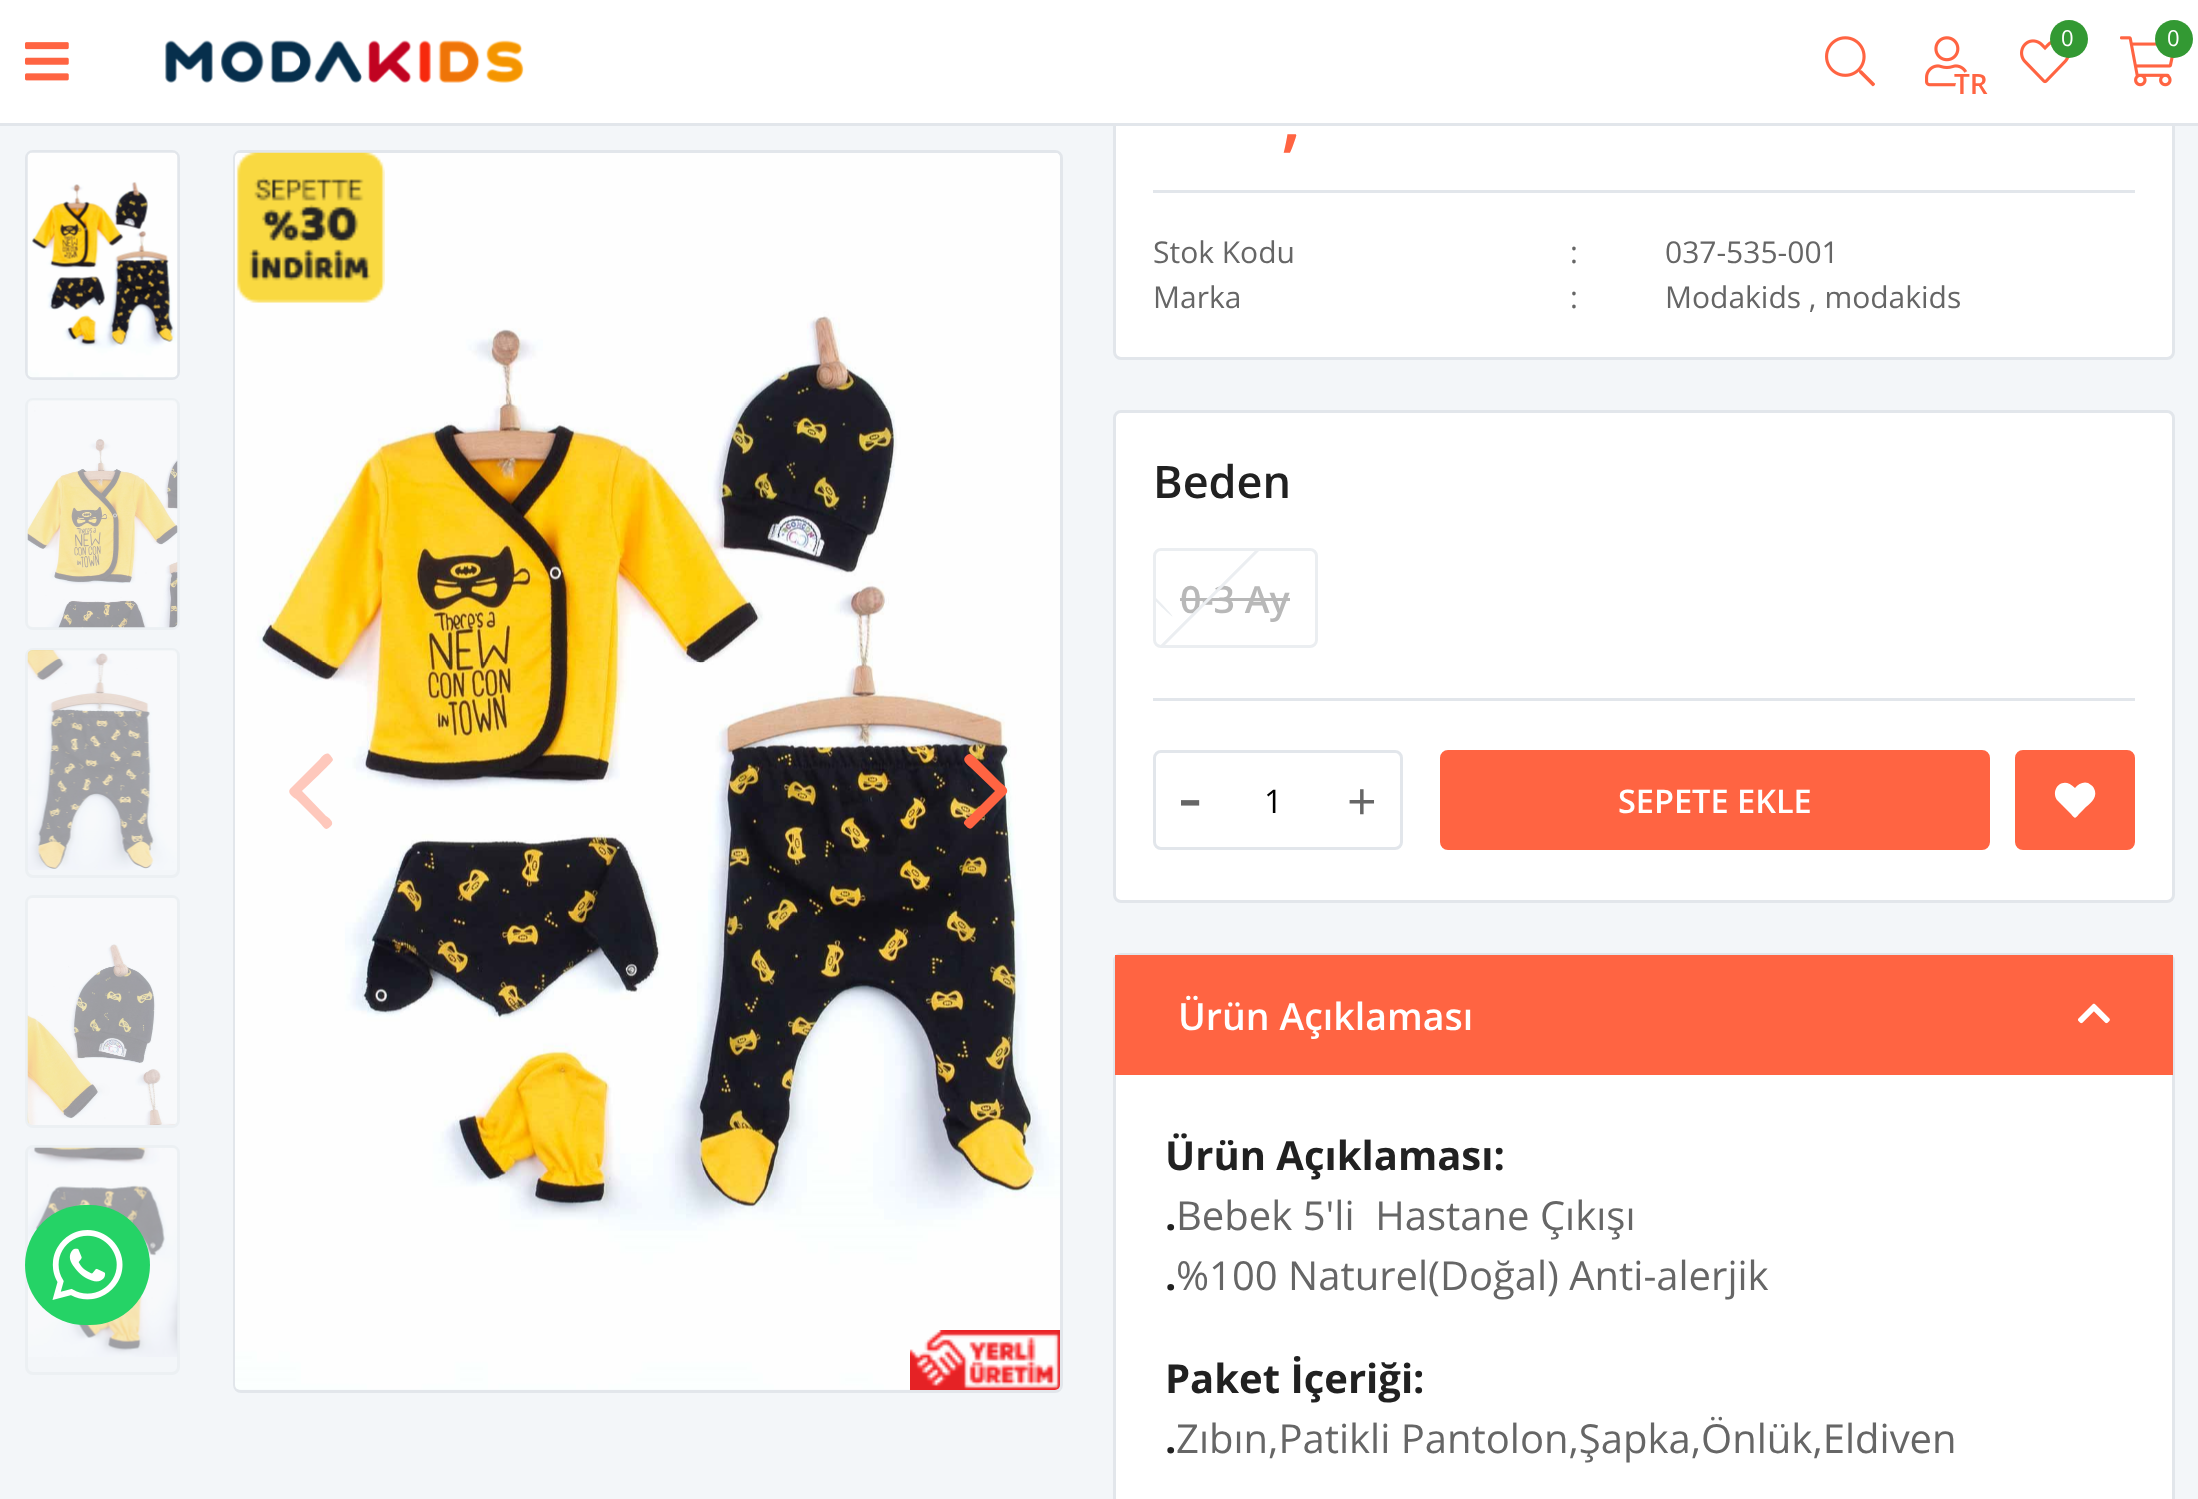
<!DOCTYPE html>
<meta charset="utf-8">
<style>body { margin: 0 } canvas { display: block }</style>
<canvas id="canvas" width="2198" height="1499"></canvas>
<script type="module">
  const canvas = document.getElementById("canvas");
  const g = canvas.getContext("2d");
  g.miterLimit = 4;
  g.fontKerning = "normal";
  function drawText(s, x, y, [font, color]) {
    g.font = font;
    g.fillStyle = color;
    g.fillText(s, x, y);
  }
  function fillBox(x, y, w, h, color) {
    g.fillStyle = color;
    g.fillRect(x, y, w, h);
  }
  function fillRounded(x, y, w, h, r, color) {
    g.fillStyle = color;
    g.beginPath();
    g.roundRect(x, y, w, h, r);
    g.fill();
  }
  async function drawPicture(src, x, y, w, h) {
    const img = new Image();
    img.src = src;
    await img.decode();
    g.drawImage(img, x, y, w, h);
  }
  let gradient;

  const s1 = ["600 28px Open Sans", "#FF6442"];
  const s2 = ["22px Open Sans", "#FFFFFF"];
  const s3 = ["600 75px Open Sans", "#FF6442"];
  const s4 = ["30px Open Sans", "#666666"];
  const s5 = ["600 45px Open Sans", "#212121"];
  const s6 = ["600 37.5px Open Sans", "#B8B8B8"];
  const s7 = ["75px Open Sans", "#666666"];
  const s8 = ["32.5px Open Sans", "#000000"];
  const s9 = ["52px Open Sans", "#666666"];
  const s10 = ["600 32.5px Open Sans", "#FFFFFF"];
  const s11 = ["600 37.5px Open Sans", "#FFFFFF"];
  const s12 = ["bold 40px Open Sans", "#212121"];
  const s13 = ["40px Open Sans", "#666666"];

  fillBox(0, 0, 2198, 1499, "#F3F6F9");
  g.fillStyle = "#FFFFFF";
  g.beginPath();
  g.roundRect(1114.5, -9.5, 1059, 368, 6.5);
  g.fill();
  g.strokeStyle = "#E2E6EB";
  g.lineWidth = 3;
  g.stroke();
  fillBox(0, 0, 2198, 123, "#FFFFFF");
  fillBox(0, 123, 2198, 3, "#E2E6EB");
  await drawPicture("pic1.png", 25, 42, 44, 39);
  await drawPicture("pic2.png", 165, 40, 359, 43);
  await drawPicture("pic3.png", 1825, 36, 50, 51);
  await drawPicture("pic4.png", 1925, 36, 43, 51);
  g.fillStyle = "#FFFFFF";
  g.beginPath();
  g.arc(1974, 89, 19, 0, Math.PI * 2);
  g.fill();
  drawText("TR", 1954, 94, s1);
  await drawPicture("pic5.png", 2020, 39, 50, 45);
  g.fillStyle = "#339933";
  g.beginPath();
  g.arc(2069, 39, 19, 0, Math.PI * 2);
  g.fill();
  drawText("0", 2061, 46, s2);
  await drawPicture("pic6.png", 2120, 36, 54, 51);
  g.fillStyle = "#339933";
  g.beginPath();
  g.arc(2174, 39, 19, 0, Math.PI * 2);
  g.fill();
  drawText("0", 2167, 46, s2);
  g.beginPath();
  g.roundRect(26.5, 1146.5, 152, 227, 6.5);
  g.strokeStyle = "#ECF0F3";
  g.stroke();
  await drawPicture("pic12.png", 28, 1147, 150, 210);
  fillRounded(25, 1205, 125, 120, 60, "#25D366");
  await drawPicture("pic7.png", 52, 1230, 71, 70);
  g.beginPath();
  g.roundRect(26.5, 151.5, 152, 227, 6.5);
  g.strokeStyle = "#E2E6EB";
  g.stroke();
  await drawPicture("pic8.png", 27, 152, 151, 226);
  g.beginPath();
  g.roundRect(26.5, 399.5, 152, 229, 6.5);
  g.strokeStyle = "#ECF0F3";
  g.stroke();
  await drawPicture("pic9.png", 27, 400, 151, 228);
  g.beginPath();
  g.roundRect(26.5, 649.5, 152, 227, 6.5);
  g.stroke();
  await drawPicture("pic10.png", 27, 650, 150, 220);
  g.beginPath();
  g.roundRect(26.5, 896.5, 152, 230, 6.5);
  g.stroke();
  await drawPicture("pic11.png", 27, 898, 150, 227);
  g.beginPath();
  g.roundRect(234.5, 151.5, 827, 1240, 6.5);
  g.strokeStyle = "#E2E6EB";
  g.stroke();
  await drawPicture("pic14.png", 235, 153, 825, 1237);
  await drawPicture("pic13.png", 236, 152, 149, 151);
  g.fillStyle = "#FEC8BC";
  g.beginPath();
  g.moveTo(290, 789);
  g.lineTo(319, 760);
  g.bezierCurveTo(321, 758, 325, 752, 329, 754);
  g.bezierCurveTo(330, 755, 333, 758, 333, 760);
  g.bezierCurveTo(332, 763, 306, 787, 302, 791);
  g.lineTo(326, 816);
  g.bezierCurveTo(328, 817, 335, 822, 331, 826);
  g.bezierCurveTo(325, 832, 325, 828, 319, 822);
  g.lineTo(296, 799);
  g.bezierCurveTo(293, 797, 287, 793, 290, 789);
  g.closePath();
  g.fill();
  g.fillStyle = "#FF6442";
  g.beginPath();
  g.moveTo(1006, 794);
  g.lineTo(972, 828);
  g.bezierCurveTo(969, 830, 967, 827, 965, 825);
  g.bezierCurveTo(961, 822, 969, 817, 970, 816);
  g.lineTo(995, 791);
  g.lineTo(970, 767);
  g.bezierCurveTo(968, 765, 962, 761, 965, 757);
  g.bezierCurveTo(970, 751, 972, 755, 978, 760);
  g.lineTo(1001, 783);
  g.bezierCurveTo(1003, 785, 1010, 789, 1006, 794);
  g.closePath();
  g.fill();
  await drawPicture("pic15.png", 910, 1330, 150, 60);
  fillBox(1153, 190, 982, 3, "#E2E6EB");
  drawText(",", 1281, 143, s3);
  drawText("Stok Kodu", 1153, 263, s4);
  drawText(":", 1570, 263, s4);
  drawText("037-535-001", 1665, 263, s4);
  drawText("Marka", 1153, 308, s4);
  drawText(":", 1570, 308, s4);
  drawText("Modakids , modakids", 1665, 308, s4);
  g.fillStyle = "#FFFFFF";
  g.beginPath();
  g.roundRect(1114.5, 411.5, 1059, 490, 6.5);
  g.fill();
  g.stroke();
  fillBox(1153, 698, 982, 3, "#E2E6EB");
  drawText("Beden", 1153, 498, s5);
  g.beginPath();
  g.roundRect(1154.5, 549.5, 162, 97, 6.5);
  g.strokeStyle = "#EBEEF1";
  g.stroke();
  g.fillStyle = "#EBEEF1";
  g.beginPath();
  g.moveTo(1156, 598);
  g.bezierCurveTo(1165.5, 607.5, 1173, 616, 1172.5, 616.5);
  g.bezierCurveTo(1172, 617, 1164.5, 610, 1155, 600.5);
  g.lineTo(1155, 597);
  g.closePath();
  g.fill();
  drawText("0-3 Ay", 1180, 613, s6);
  fillBox(1180, 598, 110, 3, "#B8B8B8");
  g.fillStyle = "#EBEEF1";
  g.beginPath();
  g.moveTo(1260, 550);
  g.lineTo(1165, 645);
  g.lineTo(1161, 645);
  g.lineTo(1256, 550);
  g.closePath();
  g.fill();
  gradient = g.createLinearGradient(1208, 597, 1212, 601);
  gradient.addColorStop(0, "rgba(235, 238, 241, 0)");
  gradient.addColorStop(0, "#EBEEF1");
  gradient.addColorStop(0.5, "#EBEEF1");
  gradient.addColorStop(0.5, "rgba(235, 238, 241, 0)");
  g.fillStyle = gradient;
  g.beginPath();
  g.moveTo(1260, 550);
  g.lineTo(1165, 645);
  g.lineTo(1161, 645);
  g.lineTo(1256, 550);
  g.closePath();
  g.fill();
  g.beginPath();
  g.roundRect(1154.5, 751.5, 247, 97, 6.5);
  g.strokeStyle = "#E2E6EB";
  g.stroke();
  drawText("-", 1178, 823, s7);
  drawText("1", 1264, 813, s8);
  drawText("+", 1347, 820, s9);
  g.fillStyle = "#FF6442";
  g.beginPath();
  g.roundRect(1441.5, 751.5, 547, 97, 6.5);
  g.fill();
  g.strokeStyle = "#FF6442";
  g.stroke();
  drawText("SEPETE EKLE", 1618, 813, s10);
  g.fillStyle = "#FF6442";
  g.beginPath();
  g.roundRect(2016.5, 751.5, 117, 97, 6.5);
  g.fill();
  g.stroke();
  g.fillStyle = "#FFFFFF";
  g.beginPath();
  g.moveTo(2091, 785);
  g.bezierCurveTo(2086, 780, 2079, 783, 2075, 788);
  g.bezierCurveTo(2062, 774, 2049, 791, 2058, 801);
  g.lineTo(2071, 814);
  g.bezierCurveTo(2075, 819, 2075, 819, 2079, 814);
  g.lineTo(2084, 809);
  g.bezierCurveTo(2089, 804, 2097, 799, 2095, 791);
  g.bezierCurveTo(2094, 788, 2093, 786, 2091, 785);
  g.closePath();
  g.fill();
  g.beginPath();
  g.roundRect(1114.5, 954.5, 1059, 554, 6.5);
  g.fill();
  g.strokeStyle = "#E2E6EB";
  g.stroke();
  fillBox(1115, 955, 1058, 120, "#FF6442");
  drawText("Ürün Açıklaması", 1178, 1030, s11);
  await drawPicture("pic16.png", 2078, 1003, 32, 21);
  drawText("Ürün Açıklaması:", 1165, 1170, s12);
  drawText(".", 1165, 1230, s12);
  drawText("Bebek 5'li  Hastane Çıkışı", 1176, 1230, s13);
  drawText(".", 1165, 1290, s12);
  drawText("%100 Naturel(Doğal) Anti-alerjik", 1176, 1290, s13);
  drawText("Paket İçeriği:", 1165, 1393, s12);
  drawText(".", 1165, 1453, s12);
  drawText("Zıbın,Patikli Pantolon,Şapka,Önlük,Eldiven", 1176, 1453, s13);
</script>
